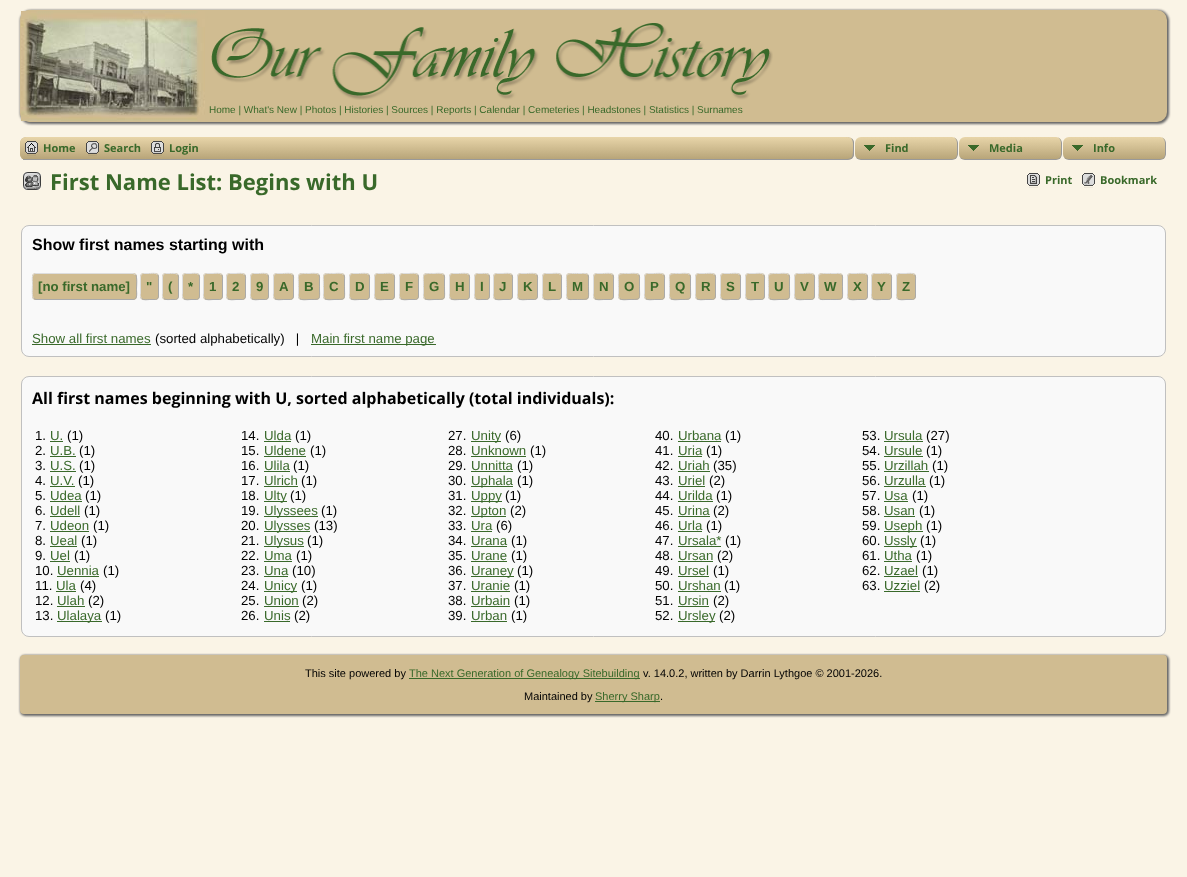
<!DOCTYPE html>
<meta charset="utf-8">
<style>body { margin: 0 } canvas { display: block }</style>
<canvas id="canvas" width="1187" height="877"></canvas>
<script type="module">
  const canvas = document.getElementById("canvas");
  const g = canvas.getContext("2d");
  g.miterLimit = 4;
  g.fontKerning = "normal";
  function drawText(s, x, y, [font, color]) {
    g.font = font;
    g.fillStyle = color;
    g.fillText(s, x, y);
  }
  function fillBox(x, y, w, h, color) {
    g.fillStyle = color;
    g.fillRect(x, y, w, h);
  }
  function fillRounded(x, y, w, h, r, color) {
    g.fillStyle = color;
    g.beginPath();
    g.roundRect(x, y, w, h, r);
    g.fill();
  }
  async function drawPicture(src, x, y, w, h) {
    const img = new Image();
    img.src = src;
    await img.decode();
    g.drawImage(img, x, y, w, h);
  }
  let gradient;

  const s1 = ["10px Liberation Sans", "#39692A"];
  const s2 = ["bold 11px Open Sans", "#39692A"];
  const s3 = ["bold 22px Open Sans", "#39692A"];
  const s4 = ["bold 16px Liberation Sans", "#000000"];
  const s5 = ["bold 13.25px Liberation Sans", "#39692A"];
  const s6 = ["13.25px Liberation Sans", "#39692A"];
  const s7 = ["13.25px Liberation Sans", "#000000"];
  const s8 = ["bold 16px Open Sans", "#000000"];
  const s9 = ["11px Liberation Sans", "#000000"];
  const s10 = ["11px Liberation Sans", "#39692A"];

  fillBox(0, 0, 1187, 877, "#FAF4E6");
  g.fillStyle = "#666666";
  g.filter = "blur(1px)";
  g.beginPath();
  g.roundRect(20, 10, 1149, 114, 11);
  g.fill();
  g.filter = "none";
  fillRounded(20, 10, 1147, 112, 10, "#D0BC91");
  fillRounded(20, 10, 188, 112, 10, "#D0BC91");
  await drawPicture("pic1.png", 21, 11, 184, 110);
  await drawPicture("pic2.png", 211, 23, 562, 77);
  drawText("Home | What's New | Photos | Histories | Sources | Reports | Calendar | Cemeteries | Headstones | Statistics | Surnames", 209, 113, s1);
  fillRounded(20, 137, 1147, 23, 6, "#D0BC91");
  g.save();
  g.beginPath();
  g.roundRect(20, 137, 1147, 23, 6);
  g.clip();
  gradient = g.createLinearGradient(594, 137, 594, 159);
  gradient.addColorStop(0, "#E8D5A9");
  gradient.addColorStop(1, "#B8A579");
  g.fillStyle = gradient;
  g.beginPath();
  g.roundRect(20, 137, 1147, 22, [6, 6, 0, 0]);
  g.fill();
  g.restore();
  fillBox(23, 159, 820, 1, "#999999");
  await drawPicture("pic3.png", 25, 141, 13, 15);
  drawText("Home", 43, 152, s2);
  await drawPicture("pic4.png", 86, 141, 13, 15);
  drawText("Search", 104, 152, s2);
  await drawPicture("pic5.png", 151, 141, 13, 15);
  drawText("Login", 169, 152, s2);
  fillBox(848, 137, 319, 23, "#FAF4E6");
  g.save();
  g.beginPath();
  g.roundRect(843, 137, 11, 23, [0, 6, 6, 0]);
  g.clip();
  gradient = g.createLinearGradient(848, 137, 848, 159);
  gradient.addColorStop(0, "#E8D5A9");
  gradient.addColorStop(1, "#B8A579");
  g.fillStyle = gradient;
  g.fillRect(843, 137, 11, 22);
  gradient = g.createLinearGradient(848, 159, 848, 181);
  gradient.addColorStop(0, "#E8D5A9");
  gradient.addColorStop(1, "#B8A579");
  g.fillStyle = gradient;
  g.fillRect(843, 159, 11, 1);
  g.restore();
  g.fillStyle = "#999999";
  g.beginPath();
  g.moveTo(843, 137);
  g.bezierCurveTo(847, 137, 853, 136.5, 854, 142);
  g.lineTo(854, 155);
  g.bezierCurveTo(853, 160.5, 847, 160, 843, 160);
  g.closePath();
  g.moveTo(843, 137);
  g.lineTo(849, 137);
  g.bezierCurveTo(854, 138.5, 853, 145, 853, 148.5);
  g.bezierCurveTo(853, 158.5, 852.5, 159, 843, 159);
  g.closePath();
  g.fill("evenodd");
  await drawPicture("pic6.png", 855, 137, 102, 22);
  g.beginPath();
  g.moveTo(861, 137);
  g.lineTo(952, 137);
  g.bezierCurveTo(955, 137, 958, 140, 958, 143);
  g.lineTo(958, 154);
  g.bezierCurveTo(958, 157, 955, 160, 952, 160);
  g.lineTo(861, 160);
  g.bezierCurveTo(858, 160, 855, 157, 855, 154);
  g.lineTo(855, 143);
  g.bezierCurveTo(855, 140, 858, 137, 861, 137);
  g.closePath();
  g.moveTo(861, 137);
  g.lineTo(952, 137);
  g.bezierCurveTo(955, 137, 957, 140, 957, 143);
  g.lineTo(957, 154);
  g.bezierCurveTo(957, 157, 955, 159, 952, 159);
  g.lineTo(861, 159);
  g.bezierCurveTo(858, 159, 855, 157, 855, 154);
  g.lineTo(855, 143);
  g.bezierCurveTo(855, 140, 858, 137, 861, 137);
  g.closePath();
  g.fill("evenodd");
  drawText("Find", 885, 152, s2);
  await drawPicture("pic7.png", 959, 137, 102, 22);
  g.fillStyle = "#999999";
  g.beginPath();
  g.moveTo(965, 137);
  g.lineTo(1056, 137);
  g.bezierCurveTo(1059, 137, 1062, 140, 1062, 143);
  g.lineTo(1062, 154);
  g.bezierCurveTo(1062, 157, 1059, 160, 1056, 160);
  g.lineTo(965, 160);
  g.bezierCurveTo(962, 160, 959, 157, 959, 154);
  g.lineTo(959, 143);
  g.bezierCurveTo(959, 140, 962, 137, 965, 137);
  g.closePath();
  g.moveTo(965, 137);
  g.lineTo(1056, 137);
  g.bezierCurveTo(1059, 137, 1061, 140, 1061, 143);
  g.lineTo(1061, 154);
  g.bezierCurveTo(1061, 157, 1059, 159, 1056, 159);
  g.lineTo(965, 159);
  g.bezierCurveTo(962, 159, 959, 157, 959, 154);
  g.lineTo(959, 143);
  g.bezierCurveTo(959, 140, 962, 137, 965, 137);
  g.closePath();
  g.fill("evenodd");
  drawText("Media", 989, 152, s2);
  await drawPicture("pic6.png", 1063, 137, 102, 22);
  g.fillStyle = "#999999";
  g.beginPath();
  g.moveTo(1069, 137);
  g.lineTo(1160, 137);
  g.bezierCurveTo(1163, 137, 1166, 140, 1166, 143);
  g.lineTo(1166, 154);
  g.bezierCurveTo(1166, 157, 1163, 160, 1160, 160);
  g.lineTo(1069, 160);
  g.bezierCurveTo(1066, 160, 1063, 157, 1063, 154);
  g.lineTo(1063, 143);
  g.bezierCurveTo(1063, 140, 1066, 137, 1069, 137);
  g.closePath();
  g.moveTo(1069, 137);
  g.lineTo(1160, 137);
  g.bezierCurveTo(1163, 137, 1165, 140, 1165, 143);
  g.lineTo(1165, 154);
  g.bezierCurveTo(1165, 157, 1163, 159, 1160, 159);
  g.lineTo(1069, 159);
  g.bezierCurveTo(1066, 159, 1063, 157, 1063, 154);
  g.lineTo(1063, 143);
  g.bezierCurveTo(1063, 140, 1066, 137, 1069, 137);
  g.closePath();
  g.fill("evenodd");
  drawText("Info", 1093, 152, s2);
  await drawPicture("pic8.png", 23, 172, 18, 18);
  drawText("First Name List: Begins with U", 50, 190, s3);
  await drawPicture("pic9.png", 1027, 173, 13, 15);
  drawText("Print", 1045, 184, s2);
  await drawPicture("pic10.png", 1082, 173, 13, 15);
  drawText("Bookmark", 1100, 184, s2);
  g.fillStyle = "#F9F9F9";
  g.beginPath();
  g.roundRect(21.5, 225.5, 1144, 131, 7.5);
  g.fill();
  g.strokeStyle = "#C0C0C0";
  g.stroke();
  drawText("Show first names starting with", 32, 250, s4);
  fillRounded(32, 273, 105, 27, 4, "#D0BC91");
  g.beginPath();
  g.moveTo(135.5, 274.5);
  g.bezierCurveTo(137.5, 276.5, 136.5, 286.5, 136.5, 289.5);
  g.bezierCurveTo(136.5, 292.5, 138, 299.5, 133, 299.5);
  g.lineTo(36, 299.5);
  g.lineTo(33.5, 298.5);
  g.strokeStyle = "#AAAAAA";
  g.stroke();
  g.beginPath();
  g.moveTo(33.5, 298.5);
  g.bezierCurveTo(31.5, 296.5, 32.5, 286.5, 32.5, 283.5);
  g.bezierCurveTo(32.5, 280.5, 31, 273.5, 36, 273.5);
  g.lineTo(133, 273.5);
  g.lineTo(135.5, 274.5);
  g.strokeStyle = "#DDDDDD";
  g.stroke();
  drawText("[no first name]", 38, 291, s5);
  fillRounded(140, 273, 19, 27, 4, "#D0BC91");
  g.beginPath();
  g.moveTo(157.5, 274.5);
  g.bezierCurveTo(159, 276, 158.5, 278.5, 158.5, 280);
  g.lineTo(158.5, 293);
  g.bezierCurveTo(158.5, 295.5, 159, 299, 155.5, 299.5);
  g.lineTo(149.5, 299.5);
  g.bezierCurveTo(147.5, 299.5, 143.5, 300.5, 141.5, 298.5);
  g.strokeStyle = "#AAAAAA";
  g.stroke();
  g.beginPath();
  g.moveTo(141.5, 298.5);
  g.bezierCurveTo(140, 297, 140.5, 294.5, 140.5, 293);
  g.lineTo(140.5, 280);
  g.bezierCurveTo(140.5, 277.5, 140, 274, 143.5, 273.5);
  g.lineTo(149.5, 273.5);
  g.bezierCurveTo(151.5, 273.5, 155.5, 272.5, 157.5, 274.5);
  g.strokeStyle = "#DDDDDD";
  g.stroke();
  drawText("\"", 146, 291, s5);
  fillRounded(162, 273, 17, 27, 4, "#D0BC91");
  g.beginPath();
  g.moveTo(177.5, 274.5);
  g.bezierCurveTo(179, 276, 178.5, 278.5, 178.5, 280);
  g.lineTo(178.5, 293);
  g.bezierCurveTo(178.5, 295.5, 179, 299, 175.5, 299.5);
  g.lineTo(170.5, 299.5);
  g.bezierCurveTo(168.5, 299.5, 165.5, 300, 163.5, 298.5);
  g.strokeStyle = "#AAAAAA";
  g.stroke();
  g.beginPath();
  g.moveTo(163.5, 298.5);
  g.bezierCurveTo(162, 297, 162.5, 294.5, 162.5, 293);
  g.lineTo(162.5, 280);
  g.bezierCurveTo(162.5, 277.5, 162, 274, 165.5, 273.5);
  g.lineTo(170.5, 273.5);
  g.bezierCurveTo(172.5, 273.5, 175.5, 273, 177.5, 274.5);
  g.strokeStyle = "#DDDDDD";
  g.stroke();
  drawText("(", 168, 291, s5);
  fillRounded(182, 273, 18, 27, 4, "#D0BC91");
  g.beginPath();
  g.moveTo(198.5, 274.5);
  g.bezierCurveTo(200, 276, 199.5, 278.5, 199.5, 280);
  g.lineTo(199.5, 293);
  g.bezierCurveTo(199.5, 295.5, 200, 299, 196.5, 299.5);
  g.lineTo(191, 299.5);
  g.bezierCurveTo(189, 299.5, 185.5, 300.5, 183.5, 298.5);
  g.strokeStyle = "#AAAAAA";
  g.stroke();
  g.beginPath();
  g.moveTo(183.5, 298.5);
  g.bezierCurveTo(182, 297, 182.5, 294.5, 182.5, 293);
  g.lineTo(182.5, 280);
  g.bezierCurveTo(182.5, 277.5, 182, 274, 185.5, 273.5);
  g.lineTo(191, 273.5);
  g.bezierCurveTo(193, 273.5, 196.5, 272.5, 198.5, 274.5);
  g.strokeStyle = "#DDDDDD";
  g.stroke();
  drawText("*", 188, 291, s5);
  fillRounded(203, 273, 20, 27, 4, "#D0BC91");
  g.beginPath();
  g.moveTo(221.5, 274.5);
  g.bezierCurveTo(223, 276, 222.5, 278.5, 222.5, 280);
  g.lineTo(222.5, 293);
  g.bezierCurveTo(222.5, 295.5, 223, 299, 219.5, 299.5);
  g.lineTo(213, 299.5);
  g.bezierCurveTo(211, 299.5, 206.5, 300.5, 204.5, 298.5);
  g.strokeStyle = "#AAAAAA";
  g.stroke();
  g.beginPath();
  g.moveTo(204.5, 298.5);
  g.bezierCurveTo(203, 297, 203.5, 294.5, 203.5, 293);
  g.lineTo(203.5, 280);
  g.bezierCurveTo(203.5, 277.5, 203, 274, 206.5, 273.5);
  g.lineTo(213, 273.5);
  g.bezierCurveTo(215, 273.5, 219.5, 272.5, 221.5, 274.5);
  g.strokeStyle = "#DDDDDD";
  g.stroke();
  drawText("1", 209, 291, s5);
  fillRounded(226, 273, 20, 27, 4, "#D0BC91");
  g.beginPath();
  g.moveTo(244.5, 274.5);
  g.bezierCurveTo(246, 276, 245.5, 278.5, 245.5, 280);
  g.lineTo(245.5, 293);
  g.bezierCurveTo(245.5, 295.5, 246, 299, 242.5, 299.5);
  g.lineTo(236, 299.5);
  g.bezierCurveTo(234, 299.5, 229.5, 300.5, 227.5, 298.5);
  g.strokeStyle = "#AAAAAA";
  g.stroke();
  g.beginPath();
  g.moveTo(227.5, 298.5);
  g.bezierCurveTo(226, 297, 226.5, 294.5, 226.5, 293);
  g.lineTo(226.5, 280);
  g.bezierCurveTo(226.5, 277.5, 226, 274, 229.5, 273.5);
  g.lineTo(236, 273.5);
  g.bezierCurveTo(238, 273.5, 242.5, 272.5, 244.5, 274.5);
  g.strokeStyle = "#DDDDDD";
  g.stroke();
  drawText("2", 232, 291, s5);
  fillRounded(250, 273, 19, 27, 4, "#D0BC91");
  g.beginPath();
  g.moveTo(267.5, 274.5);
  g.bezierCurveTo(269, 276, 268.5, 278.5, 268.5, 280);
  g.lineTo(268.5, 293);
  g.bezierCurveTo(268.5, 295.5, 269, 299, 265.5, 299.5);
  g.lineTo(259.5, 299.5);
  g.bezierCurveTo(257.5, 299.5, 253.5, 300.5, 251.5, 298.5);
  g.strokeStyle = "#AAAAAA";
  g.stroke();
  g.beginPath();
  g.moveTo(251.5, 298.5);
  g.bezierCurveTo(250, 297, 250.5, 294.5, 250.5, 293);
  g.lineTo(250.5, 280);
  g.bezierCurveTo(250.5, 277.5, 250, 274, 253.5, 273.5);
  g.lineTo(259.5, 273.5);
  g.bezierCurveTo(261.5, 273.5, 265.5, 272.5, 267.5, 274.5);
  g.strokeStyle = "#DDDDDD";
  g.stroke();
  drawText("9", 256, 291, s5);
  fillRounded(273, 273, 21, 27, 4, "#D0BC91");
  g.beginPath();
  g.moveTo(292.5, 274.5);
  g.bezierCurveTo(294, 276, 293.5, 278.5, 293.5, 280);
  g.lineTo(293.5, 293);
  g.bezierCurveTo(293.5, 295.5, 294, 299, 290.5, 299.5);
  g.lineTo(283.5, 299.5);
  g.bezierCurveTo(281, 299.5, 276.5, 300.5, 274.5, 298.5);
  g.strokeStyle = "#AAAAAA";
  g.stroke();
  g.beginPath();
  g.moveTo(274.5, 298.5);
  g.bezierCurveTo(273, 297, 273.5, 294.5, 273.5, 293);
  g.lineTo(273.5, 280);
  g.bezierCurveTo(273.5, 277.5, 273, 274, 276.5, 273.5);
  g.lineTo(283.5, 273.5);
  g.bezierCurveTo(286, 273.5, 290.5, 272.5, 292.5, 274.5);
  g.strokeStyle = "#DDDDDD";
  g.stroke();
  drawText("A", 279, 291, s5);
  fillRounded(298, 273, 22, 27, 4, "#D0BC91");
  g.beginPath();
  g.moveTo(318.5, 274.5);
  g.bezierCurveTo(320, 276, 319.5, 278.5, 319.5, 280);
  g.lineTo(319.5, 286.5);
  g.bezierCurveTo(319.5, 300, 321.5, 299.5, 309, 299.5);
  g.bezierCurveTo(306.5, 299.5, 301.5, 300.5, 299.5, 298.5);
  g.strokeStyle = "#AAAAAA";
  g.stroke();
  g.beginPath();
  g.moveTo(299.5, 298.5);
  g.bezierCurveTo(298, 297, 298.5, 294.5, 298.5, 293);
  g.lineTo(298.5, 286.5);
  g.bezierCurveTo(298.5, 273, 296.5, 273.5, 309, 273.5);
  g.bezierCurveTo(311.5, 273.5, 316.5, 272.5, 318.5, 274.5);
  g.strokeStyle = "#DDDDDD";
  g.stroke();
  drawText("B", 304, 291, s5);
  fillRounded(323, 273, 22, 27, 4, "#D0BC91");
  g.beginPath();
  g.moveTo(343.5, 274.5);
  g.bezierCurveTo(345, 276, 344.5, 278.5, 344.5, 280);
  g.lineTo(344.5, 286.5);
  g.bezierCurveTo(344.5, 300, 346.5, 299.5, 334, 299.5);
  g.bezierCurveTo(331.5, 299.5, 326.5, 300.5, 324.5, 298.5);
  g.strokeStyle = "#AAAAAA";
  g.stroke();
  g.beginPath();
  g.moveTo(324.5, 298.5);
  g.bezierCurveTo(323, 297, 323.5, 294.5, 323.5, 293);
  g.lineTo(323.5, 286.5);
  g.bezierCurveTo(323.5, 273, 321.5, 273.5, 334, 273.5);
  g.bezierCurveTo(336.5, 273.5, 341.5, 272.5, 343.5, 274.5);
  g.strokeStyle = "#DDDDDD";
  g.stroke();
  drawText("C", 329, 291, s5);
  fillRounded(349, 273, 21, 27, 4, "#D0BC91");
  g.beginPath();
  g.moveTo(368.5, 274.5);
  g.bezierCurveTo(370, 276, 369.5, 278.5, 369.5, 280);
  g.lineTo(369.5, 293);
  g.bezierCurveTo(369.5, 295.5, 370, 299, 366.5, 299.5);
  g.lineTo(359.5, 299.5);
  g.bezierCurveTo(357, 299.5, 352.5, 300.5, 350.5, 298.5);
  g.strokeStyle = "#AAAAAA";
  g.stroke();
  g.beginPath();
  g.moveTo(350.5, 298.5);
  g.bezierCurveTo(349, 297, 349.5, 294.5, 349.5, 293);
  g.lineTo(349.5, 280);
  g.bezierCurveTo(349.5, 277.5, 349, 274, 352.5, 273.5);
  g.lineTo(359.5, 273.5);
  g.bezierCurveTo(362, 273.5, 366.5, 272.5, 368.5, 274.5);
  g.strokeStyle = "#DDDDDD";
  g.stroke();
  drawText("D", 355, 291, s5);
  fillRounded(374, 273, 21, 27, 4, "#D0BC91");
  g.beginPath();
  g.moveTo(393.5, 274.5);
  g.bezierCurveTo(395, 276, 394.5, 278.5, 394.5, 280);
  g.lineTo(394.5, 293);
  g.bezierCurveTo(394.5, 295.5, 395, 299, 391.5, 299.5);
  g.lineTo(384.5, 299.5);
  g.bezierCurveTo(382, 299.5, 377.5, 300.5, 375.5, 298.5);
  g.strokeStyle = "#AAAAAA";
  g.stroke();
  g.beginPath();
  g.moveTo(375.5, 298.5);
  g.bezierCurveTo(374, 297, 374.5, 294.5, 374.5, 293);
  g.lineTo(374.5, 280);
  g.bezierCurveTo(374.5, 277.5, 374, 274, 377.5, 273.5);
  g.lineTo(384.5, 273.5);
  g.bezierCurveTo(387, 273.5, 391.5, 272.5, 393.5, 274.5);
  g.strokeStyle = "#DDDDDD";
  g.stroke();
  drawText("E", 380, 291, s5);
  fillRounded(399, 273, 20, 27, 4, "#D0BC91");
  g.beginPath();
  g.moveTo(417.5, 274.5);
  g.bezierCurveTo(419, 276, 418.5, 278.5, 418.5, 280);
  g.lineTo(418.5, 293);
  g.bezierCurveTo(418.5, 295.5, 419, 299, 415.5, 299.5);
  g.lineTo(409, 299.5);
  g.bezierCurveTo(407, 299.5, 402.5, 300.5, 400.5, 298.5);
  g.strokeStyle = "#AAAAAA";
  g.stroke();
  g.beginPath();
  g.moveTo(400.5, 298.5);
  g.bezierCurveTo(399, 297, 399.5, 294.5, 399.5, 293);
  g.lineTo(399.5, 280);
  g.bezierCurveTo(399.5, 277.5, 399, 274, 402.5, 273.5);
  g.lineTo(409, 273.5);
  g.bezierCurveTo(411, 273.5, 415.5, 272.5, 417.5, 274.5);
  g.strokeStyle = "#DDDDDD";
  g.stroke();
  drawText("F", 405, 291, s5);
  fillRounded(423, 273, 22, 27, 4, "#D0BC91");
  g.beginPath();
  g.moveTo(443.5, 274.5);
  g.bezierCurveTo(445, 276, 444.5, 278.5, 444.5, 280);
  g.lineTo(444.5, 286.5);
  g.bezierCurveTo(444.5, 300, 446.5, 299.5, 434, 299.5);
  g.bezierCurveTo(431.5, 299.5, 426.5, 300.5, 424.5, 298.5);
  g.strokeStyle = "#AAAAAA";
  g.stroke();
  g.beginPath();
  g.moveTo(424.5, 298.5);
  g.bezierCurveTo(423, 297, 423.5, 294.5, 423.5, 293);
  g.lineTo(423.5, 286.5);
  g.bezierCurveTo(423.5, 273, 421.5, 273.5, 434, 273.5);
  g.bezierCurveTo(436.5, 273.5, 441.5, 272.5, 443.5, 274.5);
  g.strokeStyle = "#DDDDDD";
  g.stroke();
  drawText("G", 429, 291, s5);
  fillRounded(449, 273, 21, 27, 4, "#D0BC91");
  g.beginPath();
  g.moveTo(468.5, 274.5);
  g.bezierCurveTo(470, 276, 469.5, 278.5, 469.5, 280);
  g.lineTo(469.5, 293);
  g.bezierCurveTo(469.5, 295.5, 470, 299, 466.5, 299.5);
  g.lineTo(459.5, 299.5);
  g.bezierCurveTo(457, 299.5, 452.5, 300.5, 450.5, 298.5);
  g.strokeStyle = "#AAAAAA";
  g.stroke();
  g.beginPath();
  g.moveTo(450.5, 298.5);
  g.bezierCurveTo(449, 297, 449.5, 294.5, 449.5, 293);
  g.lineTo(449.5, 280);
  g.bezierCurveTo(449.5, 277.5, 449, 274, 452.5, 273.5);
  g.lineTo(459.5, 273.5);
  g.bezierCurveTo(462, 273.5, 466.5, 272.5, 468.5, 274.5);
  g.strokeStyle = "#DDDDDD";
  g.stroke();
  drawText("H", 455, 291, s5);
  fillRounded(474, 273, 16, 27, 4, "#D0BC91");
  g.beginPath();
  g.moveTo(488.5, 274.5);
  g.bezierCurveTo(490, 276, 489.5, 278.5, 489.5, 280);
  g.lineTo(489.5, 293);
  g.bezierCurveTo(489.5, 295.5, 490, 299, 486.5, 299.5);
  g.lineTo(482, 299.5);
  g.bezierCurveTo(480, 299.5, 477, 300, 475.5, 298.5);
  g.strokeStyle = "#AAAAAA";
  g.stroke();
  g.beginPath();
  g.moveTo(475.5, 298.5);
  g.bezierCurveTo(474, 297, 474.5, 294.5, 474.5, 293);
  g.lineTo(474.5, 280);
  g.bezierCurveTo(474.5, 277.5, 474, 274, 477.5, 273.5);
  g.lineTo(482, 273.5);
  g.bezierCurveTo(484, 273.5, 487, 273, 488.5, 274.5);
  g.strokeStyle = "#DDDDDD";
  g.stroke();
  drawText("I", 480, 291, s5);
  fillRounded(493, 273, 20, 27, 4, "#D0BC91");
  g.beginPath();
  g.moveTo(511.5, 274.5);
  g.bezierCurveTo(513, 276, 512.5, 278.5, 512.5, 280);
  g.lineTo(512.5, 293);
  g.bezierCurveTo(512.5, 295.5, 513, 299, 509.5, 299.5);
  g.lineTo(503, 299.5);
  g.bezierCurveTo(501, 299.5, 496.5, 300.5, 494.5, 298.5);
  g.strokeStyle = "#AAAAAA";
  g.stroke();
  g.beginPath();
  g.moveTo(494.5, 298.5);
  g.bezierCurveTo(493, 297, 493.5, 294.5, 493.5, 293);
  g.lineTo(493.5, 280);
  g.bezierCurveTo(493.5, 277.5, 493, 274, 496.5, 273.5);
  g.lineTo(503, 273.5);
  g.bezierCurveTo(505, 273.5, 509.5, 272.5, 511.5, 274.5);
  g.strokeStyle = "#DDDDDD";
  g.stroke();
  drawText("J", 499, 291, s5);
  fillRounded(517, 273, 21, 27, 4, "#D0BC91");
  g.beginPath();
  g.moveTo(536.5, 274.5);
  g.bezierCurveTo(538, 276, 537.5, 278.5, 537.5, 280);
  g.lineTo(537.5, 293);
  g.bezierCurveTo(537.5, 295.5, 538, 299, 534.5, 299.5);
  g.lineTo(527.5, 299.5);
  g.bezierCurveTo(525, 299.5, 520.5, 300.5, 518.5, 298.5);
  g.strokeStyle = "#AAAAAA";
  g.stroke();
  g.beginPath();
  g.moveTo(518.5, 298.5);
  g.bezierCurveTo(517, 297, 517.5, 294.5, 517.5, 293);
  g.lineTo(517.5, 280);
  g.bezierCurveTo(517.5, 277.5, 517, 274, 520.5, 273.5);
  g.lineTo(527.5, 273.5);
  g.bezierCurveTo(530, 273.5, 534.5, 272.5, 536.5, 274.5);
  g.strokeStyle = "#DDDDDD";
  g.stroke();
  drawText("K", 523, 291, s5);
  fillRounded(542, 273, 20, 27, 4, "#D0BC91");
  g.beginPath();
  g.moveTo(560.5, 274.5);
  g.bezierCurveTo(562, 276, 561.5, 278.5, 561.5, 280);
  g.lineTo(561.5, 293);
  g.bezierCurveTo(561.5, 295.5, 562, 299, 558.5, 299.5);
  g.lineTo(552, 299.5);
  g.bezierCurveTo(550, 299.5, 545.5, 300.5, 543.5, 298.5);
  g.strokeStyle = "#AAAAAA";
  g.stroke();
  g.beginPath();
  g.moveTo(543.5, 298.5);
  g.bezierCurveTo(542, 297, 542.5, 294.5, 542.5, 293);
  g.lineTo(542.5, 280);
  g.bezierCurveTo(542.5, 277.5, 542, 274, 545.5, 273.5);
  g.lineTo(552, 273.5);
  g.bezierCurveTo(554, 273.5, 558.5, 272.5, 560.5, 274.5);
  g.strokeStyle = "#DDDDDD";
  g.stroke();
  drawText("L", 548, 291, s5);
  fillRounded(566, 273, 23, 27, 4, "#D0BC91");
  g.beginPath();
  g.moveTo(587.5, 274.5);
  g.bezierCurveTo(589, 276, 588.5, 278.5, 588.5, 280);
  g.lineTo(588.5, 286.5);
  g.bezierCurveTo(588.5, 300, 590.5, 299.5, 577.5, 299.5);
  g.lineTo(572.5, 299.5);
  g.bezierCurveTo(571, 299.5, 569, 300, 567.5, 298.5);
  g.strokeStyle = "#AAAAAA";
  g.stroke();
  g.beginPath();
  g.moveTo(567.5, 298.5);
  g.bezierCurveTo(566, 297, 566.5, 294.5, 566.5, 293);
  g.lineTo(566.5, 286.5);
  g.bezierCurveTo(566.5, 273, 564.5, 273.5, 577.5, 273.5);
  g.lineTo(582.5, 273.5);
  g.bezierCurveTo(584, 273.5, 586, 273, 587.5, 274.5);
  g.strokeStyle = "#DDDDDD";
  g.stroke();
  drawText("M", 572, 291, s5);
  fillRounded(593, 273, 21, 27, 4, "#D0BC91");
  g.beginPath();
  g.moveTo(612.5, 274.5);
  g.bezierCurveTo(614, 276, 613.5, 278.5, 613.5, 280);
  g.lineTo(613.5, 293);
  g.bezierCurveTo(613.5, 295.5, 614, 299, 610.5, 299.5);
  g.lineTo(603.5, 299.5);
  g.bezierCurveTo(601, 299.5, 596.5, 300.5, 594.5, 298.5);
  g.strokeStyle = "#AAAAAA";
  g.stroke();
  g.beginPath();
  g.moveTo(594.5, 298.5);
  g.bezierCurveTo(593, 297, 593.5, 294.5, 593.5, 293);
  g.lineTo(593.5, 280);
  g.bezierCurveTo(593.5, 277.5, 593, 274, 596.5, 273.5);
  g.lineTo(603.5, 273.5);
  g.bezierCurveTo(606, 273.5, 610.5, 272.5, 612.5, 274.5);
  g.strokeStyle = "#DDDDDD";
  g.stroke();
  drawText("N", 599, 291, s5);
  fillRounded(618, 273, 22, 27, 4, "#D0BC91");
  g.beginPath();
  g.moveTo(638.5, 274.5);
  g.bezierCurveTo(640, 276, 639.5, 278.5, 639.5, 280);
  g.lineTo(639.5, 286.5);
  g.bezierCurveTo(639.5, 300, 641.5, 299.5, 629, 299.5);
  g.bezierCurveTo(626.5, 299.5, 621.5, 300.5, 619.5, 298.5);
  g.strokeStyle = "#AAAAAA";
  g.stroke();
  g.beginPath();
  g.moveTo(619.5, 298.5);
  g.bezierCurveTo(618, 297, 618.5, 294.5, 618.5, 293);
  g.lineTo(618.5, 286.5);
  g.bezierCurveTo(618.5, 273, 616.5, 273.5, 629, 273.5);
  g.bezierCurveTo(631.5, 273.5, 636.5, 272.5, 638.5, 274.5);
  g.strokeStyle = "#DDDDDD";
  g.stroke();
  drawText("O", 624, 291, s5);
  fillRounded(644, 273, 21, 27, 4, "#D0BC91");
  g.beginPath();
  g.moveTo(663.5, 274.5);
  g.bezierCurveTo(665, 276, 664.5, 278.5, 664.5, 280);
  g.lineTo(664.5, 293);
  g.bezierCurveTo(664.5, 295.5, 665, 299, 661.5, 299.5);
  g.lineTo(654.5, 299.5);
  g.bezierCurveTo(652, 299.5, 647.5, 300.5, 645.5, 298.5);
  g.strokeStyle = "#AAAAAA";
  g.stroke();
  g.beginPath();
  g.moveTo(645.5, 298.5);
  g.bezierCurveTo(644, 297, 644.5, 294.5, 644.5, 293);
  g.lineTo(644.5, 280);
  g.bezierCurveTo(644.5, 277.5, 644, 274, 647.5, 273.5);
  g.lineTo(654.5, 273.5);
  g.bezierCurveTo(657, 273.5, 661.5, 272.5, 663.5, 274.5);
  g.strokeStyle = "#DDDDDD";
  g.stroke();
  drawText("P", 650, 291, s5);
  fillRounded(669, 273, 22, 27, 4, "#D0BC91");
  g.beginPath();
  g.moveTo(689.5, 274.5);
  g.bezierCurveTo(691, 276, 690.5, 278.5, 690.5, 280);
  g.lineTo(690.5, 286.5);
  g.bezierCurveTo(690.5, 300, 692.5, 299.5, 680, 299.5);
  g.bezierCurveTo(677.5, 299.5, 672.5, 300.5, 670.5, 298.5);
  g.strokeStyle = "#AAAAAA";
  g.stroke();
  g.beginPath();
  g.moveTo(670.5, 298.5);
  g.bezierCurveTo(669, 297, 669.5, 294.5, 669.5, 293);
  g.lineTo(669.5, 286.5);
  g.bezierCurveTo(669.5, 273, 667.5, 273.5, 680, 273.5);
  g.bezierCurveTo(682.5, 273.5, 687.5, 272.5, 689.5, 274.5);
  g.strokeStyle = "#DDDDDD";
  g.stroke();
  drawText("Q", 675, 291, s5);
  fillRounded(695, 273, 21, 27, 4, "#D0BC91");
  g.beginPath();
  g.moveTo(714.5, 274.5);
  g.bezierCurveTo(716, 276, 715.5, 278.5, 715.5, 280);
  g.lineTo(715.5, 293);
  g.bezierCurveTo(715.5, 295.5, 716, 299, 712.5, 299.5);
  g.lineTo(705.5, 299.5);
  g.bezierCurveTo(703, 299.5, 698.5, 300.5, 696.5, 298.5);
  g.strokeStyle = "#AAAAAA";
  g.stroke();
  g.beginPath();
  g.moveTo(696.5, 298.5);
  g.bezierCurveTo(695, 297, 695.5, 294.5, 695.5, 293);
  g.lineTo(695.5, 280);
  g.bezierCurveTo(695.5, 277.5, 695, 274, 698.5, 273.5);
  g.lineTo(705.5, 273.5);
  g.bezierCurveTo(708, 273.5, 712.5, 272.5, 714.5, 274.5);
  g.strokeStyle = "#DDDDDD";
  g.stroke();
  drawText("R", 701, 291, s5);
  fillRounded(720, 273, 21, 27, 4, "#D0BC91");
  g.beginPath();
  g.moveTo(739.5, 274.5);
  g.bezierCurveTo(741, 276, 740.5, 278.5, 740.5, 280);
  g.lineTo(740.5, 293);
  g.bezierCurveTo(740.5, 295.5, 741, 299, 737.5, 299.5);
  g.lineTo(730.5, 299.5);
  g.bezierCurveTo(728, 299.5, 723.5, 300.5, 721.5, 298.5);
  g.strokeStyle = "#AAAAAA";
  g.stroke();
  g.beginPath();
  g.moveTo(721.5, 298.5);
  g.bezierCurveTo(720, 297, 720.5, 294.5, 720.5, 293);
  g.lineTo(720.5, 280);
  g.bezierCurveTo(720.5, 277.5, 720, 274, 723.5, 273.5);
  g.lineTo(730.5, 273.5);
  g.bezierCurveTo(733, 273.5, 737.5, 272.5, 739.5, 274.5);
  g.strokeStyle = "#DDDDDD";
  g.stroke();
  drawText("S", 726, 291, s5);
  fillRounded(745, 273, 20, 27, 4, "#D0BC91");
  g.beginPath();
  g.moveTo(763.5, 274.5);
  g.bezierCurveTo(765, 276, 764.5, 278.5, 764.5, 280);
  g.lineTo(764.5, 293);
  g.bezierCurveTo(764.5, 295.5, 765, 299, 761.5, 299.5);
  g.lineTo(755, 299.5);
  g.bezierCurveTo(753, 299.5, 748.5, 300.5, 746.5, 298.5);
  g.strokeStyle = "#AAAAAA";
  g.stroke();
  g.beginPath();
  g.moveTo(746.5, 298.5);
  g.bezierCurveTo(745, 297, 745.5, 294.5, 745.5, 293);
  g.lineTo(745.5, 280);
  g.bezierCurveTo(745.5, 277.5, 745, 274, 748.5, 273.5);
  g.lineTo(755, 273.5);
  g.bezierCurveTo(757, 273.5, 761.5, 272.5, 763.5, 274.5);
  g.strokeStyle = "#DDDDDD";
  g.stroke();
  drawText("T", 751, 291, s5);
  fillRounded(768, 273, 22, 27, 4, "#D0BC91");
  g.beginPath();
  g.moveTo(788.5, 274.5);
  g.bezierCurveTo(790, 276, 789.5, 278.5, 789.5, 280);
  g.lineTo(789.5, 286.5);
  g.bezierCurveTo(789.5, 300, 791.5, 299.5, 779, 299.5);
  g.bezierCurveTo(776.5, 299.5, 771.5, 300.5, 769.5, 298.5);
  g.strokeStyle = "#AAAAAA";
  g.stroke();
  g.beginPath();
  g.moveTo(769.5, 298.5);
  g.bezierCurveTo(768, 297, 768.5, 294.5, 768.5, 293);
  g.lineTo(768.5, 286.5);
  g.bezierCurveTo(768.5, 273, 766.5, 273.5, 779, 273.5);
  g.bezierCurveTo(781.5, 273.5, 786.5, 272.5, 788.5, 274.5);
  g.strokeStyle = "#DDDDDD";
  g.stroke();
  drawText("U", 774, 291, s5);
  fillRounded(794, 273, 21, 27, 4, "#D0BC91");
  g.beginPath();
  g.moveTo(813.5, 274.5);
  g.bezierCurveTo(815, 276, 814.5, 278.5, 814.5, 280);
  g.lineTo(814.5, 293);
  g.bezierCurveTo(814.5, 295.5, 815, 299, 811.5, 299.5);
  g.lineTo(804.5, 299.5);
  g.bezierCurveTo(802, 299.5, 797.5, 300.5, 795.5, 298.5);
  g.strokeStyle = "#AAAAAA";
  g.stroke();
  g.beginPath();
  g.moveTo(795.5, 298.5);
  g.bezierCurveTo(794, 297, 794.5, 294.5, 794.5, 293);
  g.lineTo(794.5, 280);
  g.bezierCurveTo(794.5, 277.5, 794, 274, 797.5, 273.5);
  g.lineTo(804.5, 273.5);
  g.bezierCurveTo(807, 273.5, 811.5, 272.5, 813.5, 274.5);
  g.strokeStyle = "#DDDDDD";
  g.stroke();
  drawText("V", 800, 291, s5);
  fillRounded(818, 273, 25, 27, 4, "#D0BC91");
  g.beginPath();
  g.moveTo(841.5, 274.5);
  g.bezierCurveTo(843, 276, 842.5, 278.5, 842.5, 280);
  g.lineTo(842.5, 286.5);
  g.bezierCurveTo(842.5, 300.5, 844.5, 299.5, 830.5, 299.5);
  g.lineTo(825, 299.5);
  g.bezierCurveTo(823, 299.5, 821, 300, 819.5, 298.5);
  g.strokeStyle = "#AAAAAA";
  g.stroke();
  g.beginPath();
  g.moveTo(819.5, 298.5);
  g.bezierCurveTo(818, 297, 818.5, 294.5, 818.5, 293);
  g.lineTo(818.5, 286.5);
  g.bezierCurveTo(818.5, 272.5, 816.5, 273.5, 830.5, 273.5);
  g.lineTo(836, 273.5);
  g.bezierCurveTo(838, 273.5, 840, 273, 841.5, 274.5);
  g.strokeStyle = "#DDDDDD";
  g.stroke();
  drawText("W", 824, 291, s5);
  fillRounded(847, 273, 21, 27, 4, "#D0BC91");
  g.beginPath();
  g.moveTo(866.5, 274.5);
  g.bezierCurveTo(868, 276, 867.5, 278.5, 867.5, 280);
  g.lineTo(867.5, 293);
  g.bezierCurveTo(867.5, 295.5, 868, 299, 864.5, 299.5);
  g.lineTo(857.5, 299.5);
  g.bezierCurveTo(855, 299.5, 850.5, 300.5, 848.5, 298.5);
  g.strokeStyle = "#AAAAAA";
  g.stroke();
  g.beginPath();
  g.moveTo(848.5, 298.5);
  g.bezierCurveTo(847, 297, 847.5, 294.5, 847.5, 293);
  g.lineTo(847.5, 280);
  g.bezierCurveTo(847.5, 277.5, 847, 274, 850.5, 273.5);
  g.lineTo(857.5, 273.5);
  g.bezierCurveTo(860, 273.5, 864.5, 272.5, 866.5, 274.5);
  g.strokeStyle = "#DDDDDD";
  g.stroke();
  drawText("X", 853, 291, s5);
  fillRounded(871, 273, 21, 27, 4, "#D0BC91");
  g.beginPath();
  g.moveTo(890.5, 274.5);
  g.bezierCurveTo(892, 276, 891.5, 278.5, 891.5, 280);
  g.lineTo(891.5, 293);
  g.bezierCurveTo(891.5, 295.5, 892, 299, 888.5, 299.5);
  g.lineTo(881.5, 299.5);
  g.bezierCurveTo(879, 299.5, 874.5, 300.5, 872.5, 298.5);
  g.strokeStyle = "#AAAAAA";
  g.stroke();
  g.beginPath();
  g.moveTo(872.5, 298.5);
  g.bezierCurveTo(871, 297, 871.5, 294.5, 871.5, 293);
  g.lineTo(871.5, 280);
  g.bezierCurveTo(871.5, 277.5, 871, 274, 874.5, 273.5);
  g.lineTo(881.5, 273.5);
  g.bezierCurveTo(884, 273.5, 888.5, 272.5, 890.5, 274.5);
  g.strokeStyle = "#DDDDDD";
  g.stroke();
  drawText("Y", 877, 291, s5);
  fillRounded(896, 273, 20, 27, 4, "#D0BC91");
  g.beginPath();
  g.moveTo(914.5, 274.5);
  g.bezierCurveTo(916, 276, 915.5, 278.5, 915.5, 280);
  g.lineTo(915.5, 293);
  g.bezierCurveTo(915.5, 295.5, 916, 299, 912.5, 299.5);
  g.lineTo(906, 299.5);
  g.bezierCurveTo(904, 299.5, 899.5, 300.5, 897.5, 298.5);
  g.strokeStyle = "#AAAAAA";
  g.stroke();
  g.beginPath();
  g.moveTo(897.5, 298.5);
  g.bezierCurveTo(896, 297, 896.5, 294.5, 896.5, 293);
  g.lineTo(896.5, 280);
  g.bezierCurveTo(896.5, 277.5, 896, 274, 899.5, 273.5);
  g.lineTo(906, 273.5);
  g.bezierCurveTo(908, 273.5, 912.5, 272.5, 914.5, 274.5);
  g.strokeStyle = "#DDDDDD";
  g.stroke();
  drawText("Z", 902, 291, s5);
  drawText("Show all first names", 32, 343, s6);
  fillBox(32, 344, 119, 1, "#39692A");
  drawText("(sorted alphabetically)   |", 155, 343, s7);
  fillBox(311, 344, 125, 1, "#39692A");
  drawText("Main first name page", 311, 343, s6);
  g.fillStyle = "#F9F9F9";
  g.beginPath();
  g.roundRect(21.5, 376.5, 1144, 260, 7.5);
  g.fill();
  g.strokeStyle = "#C0C0C0";
  g.stroke();
  drawText("All first names beginning with U, sorted alphabetically (total individuals):", 32, 404, s8);
  drawText("1.", 35, 440, s7);
  drawText("U.", 50, 440, s6);
  fillBox(50, 441, 13, 1, "#39692A");
  drawText("(1)", 67, 440, s7);
  drawText("2.", 35, 455, s7);
  drawText("U.B.", 50, 455, s6);
  fillBox(50, 456, 26, 1, "#39692A");
  drawText("(1)", 79, 455, s7);
  drawText("3.", 35, 470, s7);
  drawText("U.S.", 50, 470, s6);
  fillBox(50, 471, 26, 1, "#39692A");
  drawText("(1)", 79, 470, s7);
  drawText("4.", 35, 485, s7);
  drawText("U.V.", 50, 485, s6);
  fillBox(50, 486, 25, 1, "#39692A");
  drawText("(1)", 78, 485, s7);
  drawText("5.", 35, 500, s7);
  drawText("Udea", 50, 500, s6);
  fillBox(50, 501, 32, 1, "#39692A");
  drawText("(1)", 85, 500, s7);
  drawText("6.", 35, 515, s7);
  drawText("Udell", 50, 515, s6);
  fillBox(50, 516, 30, 1, "#39692A");
  drawText("(1)", 84, 515, s7);
  drawText("7.", 35, 530, s7);
  drawText("Udeon", 50, 530, s6);
  fillBox(50, 531, 39, 1, "#39692A");
  drawText("(1)", 93, 530, s7);
  drawText("8.", 35, 545, s7);
  drawText("Ueal", 50, 545, s6);
  fillBox(50, 546, 27, 1, "#39692A");
  drawText("(1)", 81, 545, s7);
  drawText("9.", 35, 560, s7);
  drawText("Uel", 50, 560, s6);
  fillBox(50, 561, 20, 1, "#39692A");
  drawText("(1)", 74, 560, s7);
  drawText("10.", 35, 575, s7);
  drawText("Uennia", 57, 575, s6);
  fillBox(57, 576, 42, 1, "#39692A");
  drawText("(1)", 103, 575, s7);
  drawText("11.", 35, 590, s7);
  drawText("Ula", 56, 590, s6);
  fillBox(56, 591, 20, 1, "#39692A");
  drawText("(4)", 80, 590, s7);
  drawText("12.", 35, 605, s7);
  drawText("Ulah", 57, 605, s6);
  fillBox(57, 606, 28, 1, "#39692A");
  drawText("(2)", 88, 605, s7);
  drawText("13.", 35, 620, s7);
  fillBox(57, 621, 45, 1, "#39692A");
  drawText("Ulalaya", 57, 620, s6);
  drawText("(1)", 105, 620, s7);
  drawText("14.", 241, 440, s7);
  drawText("Ulda", 264, 440, s6);
  fillBox(264, 441, 27, 1, "#39692A");
  drawText("(1)", 295, 440, s7);
  drawText("15.", 241, 455, s7);
  drawText("Uldene", 264, 455, s6);
  fillBox(264, 456, 42, 1, "#39692A");
  drawText("(1)", 310, 455, s7);
  drawText("16.", 241, 470, s7);
  drawText("Ulila", 264, 470, s6);
  fillBox(264, 471, 26, 1, "#39692A");
  drawText("(1)", 293, 470, s7);
  drawText("17.", 241, 485, s7);
  drawText("Ulrich", 264, 485, s6);
  fillBox(264, 486, 34, 1, "#39692A");
  drawText("(1)", 301, 485, s7);
  drawText("18.", 241, 500, s7);
  fillBox(264, 501, 23, 1, "#39692A");
  drawText("Ulty", 264, 500, s6);
  drawText("(1)", 290, 500, s7);
  drawText("19.", 241, 515, s7);
  fillBox(264, 516, 54, 1, "#39692A");
  drawText("Ulyssees", 264, 515, s6);
  drawText("(1)", 321, 515, s7);
  drawText("20.", 241, 530, s7);
  fillBox(264, 531, 46, 1, "#39692A");
  drawText("Ulysses", 264, 530, s6);
  drawText("(13)", 314, 530, s7);
  drawText("21.", 241, 545, s7);
  fillBox(264, 546, 40, 1, "#39692A");
  drawText("Ulysus", 264, 545, s6);
  drawText("(1)", 307, 545, s7);
  drawText("22.", 241, 560, s7);
  drawText("Uma", 264, 560, s6);
  fillBox(264, 561, 28, 1, "#39692A");
  drawText("(1)", 296, 560, s7);
  drawText("23.", 241, 575, s7);
  drawText("Una", 264, 575, s6);
  fillBox(264, 576, 24, 1, "#39692A");
  drawText("(10)", 292, 575, s7);
  drawText("24.", 241, 590, s7);
  fillBox(264, 591, 33, 1, "#39692A");
  drawText("Unicy", 264, 590, s6);
  drawText("(1)", 301, 590, s7);
  drawText("25.", 241, 605, s7);
  drawText("Union", 264, 605, s6);
  fillBox(264, 606, 35, 1, "#39692A");
  drawText("(2)", 302, 605, s7);
  drawText("26.", 241, 620, s7);
  drawText("Unis", 264, 620, s6);
  fillBox(264, 621, 26, 1, "#39692A");
  drawText("(2)", 294, 620, s7);
  drawText("27.", 448, 440, s7);
  fillBox(471, 441, 30, 1, "#39692A");
  drawText("Unity", 471, 440, s6);
  drawText("(6)", 505, 440, s7);
  drawText("28.", 448, 455, s7);
  drawText("Unknown", 471, 455, s6);
  fillBox(471, 456, 55, 1, "#39692A");
  drawText("(1)", 530, 455, s7);
  drawText("29.", 448, 470, s7);
  drawText("Unnitta", 471, 470, s6);
  fillBox(471, 471, 42, 1, "#39692A");
  drawText("(1)", 517, 470, s7);
  drawText("30.", 448, 485, s7);
  fillBox(471, 486, 42, 1, "#39692A");
  drawText("Uphala", 471, 485, s6);
  drawText("(1)", 517, 485, s7);
  drawText("31.", 448, 500, s7);
  fillBox(471, 501, 31, 1, "#39692A");
  drawText("Uppy", 471, 500, s6);
  drawText("(1)", 505, 500, s7);
  drawText("32.", 448, 515, s7);
  fillBox(471, 516, 35, 1, "#39692A");
  drawText("Upton", 471, 515, s6);
  drawText("(2)", 510, 515, s7);
  drawText("33.", 448, 530, s7);
  drawText("Ura", 471, 530, s6);
  fillBox(471, 531, 21, 1, "#39692A");
  drawText("(6)", 496, 530, s7);
  drawText("34.", 448, 545, s7);
  drawText("Urana", 471, 545, s6);
  fillBox(471, 546, 36, 1, "#39692A");
  drawText("(1)", 511, 545, s7);
  drawText("35.", 448, 560, s7);
  drawText("Urane", 471, 560, s6);
  fillBox(471, 561, 36, 1, "#39692A");
  drawText("(1)", 511, 560, s7);
  drawText("36.", 448, 575, s7);
  fillBox(471, 576, 43, 1, "#39692A");
  drawText("Uraney", 471, 575, s6);
  drawText("(1)", 517, 575, s7);
  drawText("37.", 448, 590, s7);
  drawText("Uranie", 471, 590, s6);
  fillBox(471, 591, 39, 1, "#39692A");
  drawText("(1)", 514, 590, s7);
  drawText("38.", 448, 605, s7);
  drawText("Urbain", 471, 605, s6);
  fillBox(471, 606, 39, 1, "#39692A");
  drawText("(1)", 514, 605, s7);
  drawText("39.", 448, 620, s7);
  drawText("Urban", 471, 620, s6);
  fillBox(471, 621, 36, 1, "#39692A");
  drawText("(1)", 511, 620, s7);
  drawText("40.", 655, 440, s7);
  drawText("Urbana", 678, 440, s6);
  fillBox(678, 441, 43, 1, "#39692A");
  drawText("(1)", 725, 440, s7);
  drawText("41.", 655, 455, s7);
  drawText("Uria", 678, 455, s6);
  fillBox(678, 456, 24, 1, "#39692A");
  drawText("(1)", 706, 455, s7);
  drawText("42.", 655, 470, s7);
  drawText("Uriah", 678, 470, s6);
  fillBox(678, 471, 32, 1, "#39692A");
  drawText("(35)", 713, 470, s7);
  drawText("43.", 655, 485, s7);
  drawText("Uriel", 678, 485, s6);
  fillBox(678, 486, 27, 1, "#39692A");
  drawText("(2)", 709, 485, s7);
  drawText("44.", 655, 500, s7);
  drawText("Urilda", 678, 500, s6);
  fillBox(678, 501, 35, 1, "#39692A");
  drawText("(1)", 716, 500, s7);
  drawText("45.", 655, 515, s7);
  drawText("Urina", 678, 515, s6);
  fillBox(678, 516, 32, 1, "#39692A");
  drawText("(2)", 713, 515, s7);
  drawText("46.", 655, 530, s7);
  drawText("Urla", 678, 530, s6);
  fillBox(678, 531, 24, 1, "#39692A");
  drawText("(1)", 706, 530, s7);
  drawText("47.", 655, 545, s7);
  drawText("Ursala*", 678, 545, s6);
  fillBox(678, 546, 43, 1, "#39692A");
  drawText("(1)", 725, 545, s7);
  drawText("48.", 655, 560, s7);
  drawText("Ursan", 678, 560, s6);
  fillBox(678, 561, 35, 1, "#39692A");
  drawText("(2)", 717, 560, s7);
  drawText("49.", 655, 575, s7);
  drawText("Ursel", 678, 575, s6);
  fillBox(678, 576, 31, 1, "#39692A");
  drawText("(1)", 713, 575, s7);
  drawText("50.", 655, 590, s7);
  drawText("Urshan", 678, 590, s6);
  fillBox(678, 591, 43, 1, "#39692A");
  drawText("(1)", 724, 590, s7);
  drawText("51.", 655, 605, s7);
  drawText("Ursin", 678, 605, s6);
  fillBox(678, 606, 31, 1, "#39692A");
  drawText("(2)", 713, 605, s7);
  drawText("52.", 655, 620, s7);
  fillBox(678, 621, 37, 1, "#39692A");
  drawText("Ursley", 678, 620, s6);
  drawText("(2)", 719, 620, s7);
  drawText("53.", 862, 440, s7);
  drawText("Ursula", 884, 440, s6);
  fillBox(884, 441, 39, 1, "#39692A");
  drawText("(27)", 926, 440, s7);
  drawText("54.", 862, 455, s7);
  drawText("Ursule", 884, 455, s6);
  fillBox(884, 456, 39, 1, "#39692A");
  drawText("(1)", 926, 455, s7);
  drawText("55.", 862, 470, s7);
  drawText("Urzillah", 884, 470, s6);
  fillBox(884, 471, 45, 1, "#39692A");
  drawText("(1)", 932, 470, s7);
  drawText("56.", 862, 485, s7);
  drawText("Urzulla", 884, 485, s6);
  fillBox(884, 486, 42, 1, "#39692A");
  drawText("(1)", 929, 485, s7);
  drawText("57.", 862, 500, s7);
  drawText("Usa", 884, 500, s6);
  fillBox(884, 501, 24, 1, "#39692A");
  drawText("(1)", 912, 500, s7);
  drawText("58.", 862, 515, s7);
  drawText("Usan", 884, 515, s6);
  fillBox(884, 516, 31, 1, "#39692A");
  drawText("(1)", 919, 515, s7);
  drawText("59.", 862, 530, s7);
  fillBox(884, 531, 39, 1, "#39692A");
  drawText("Useph", 884, 530, s6);
  drawText("(1)", 926, 530, s7);
  drawText("60.", 862, 545, s7);
  fillBox(884, 546, 33, 1, "#39692A");
  drawText("Ussly", 884, 545, s6);
  drawText("(1)", 920, 545, s7);
  drawText("61.", 862, 560, s7);
  drawText("Utha", 884, 560, s6);
  fillBox(884, 561, 28, 1, "#39692A");
  drawText("(1)", 916, 560, s7);
  drawText("62.", 862, 575, s7);
  drawText("Uzael", 884, 575, s6);
  fillBox(884, 576, 34, 1, "#39692A");
  drawText("(1)", 922, 575, s7);
  drawText("63.", 862, 590, s7);
  drawText("Uzziel", 884, 590, s6);
  fillBox(884, 591, 36, 1, "#39692A");
  drawText("(2)", 924, 590, s7);
  g.fillStyle = "#666666";
  g.filter = "blur(1px)";
  g.beginPath();
  g.roundRect(20, 655, 1149, 61, 5);
  g.fill();
  g.filter = "none";
  fillRounded(20, 655, 1147, 59, 4, "#D0BC91");
  drawText("This site powered by", 305, 677, s9);
  fillBox(409, 678, 231, 1, "#39692A");
  drawText("The Next Generation of Genealogy Sitebuilding", 409, 677, s10);
  drawText("v. 14.0.2, written by Darrin Lythgoe © 2001-2026.", 643, 677, s9);
  drawText("Maintained by", 524, 700, s9);
  fillBox(595, 701, 65, 1, "#39692A");
  drawText("Sherry Sharp", 595, 700, s10);
  drawText(".", 660, 700, s9);
</script>
